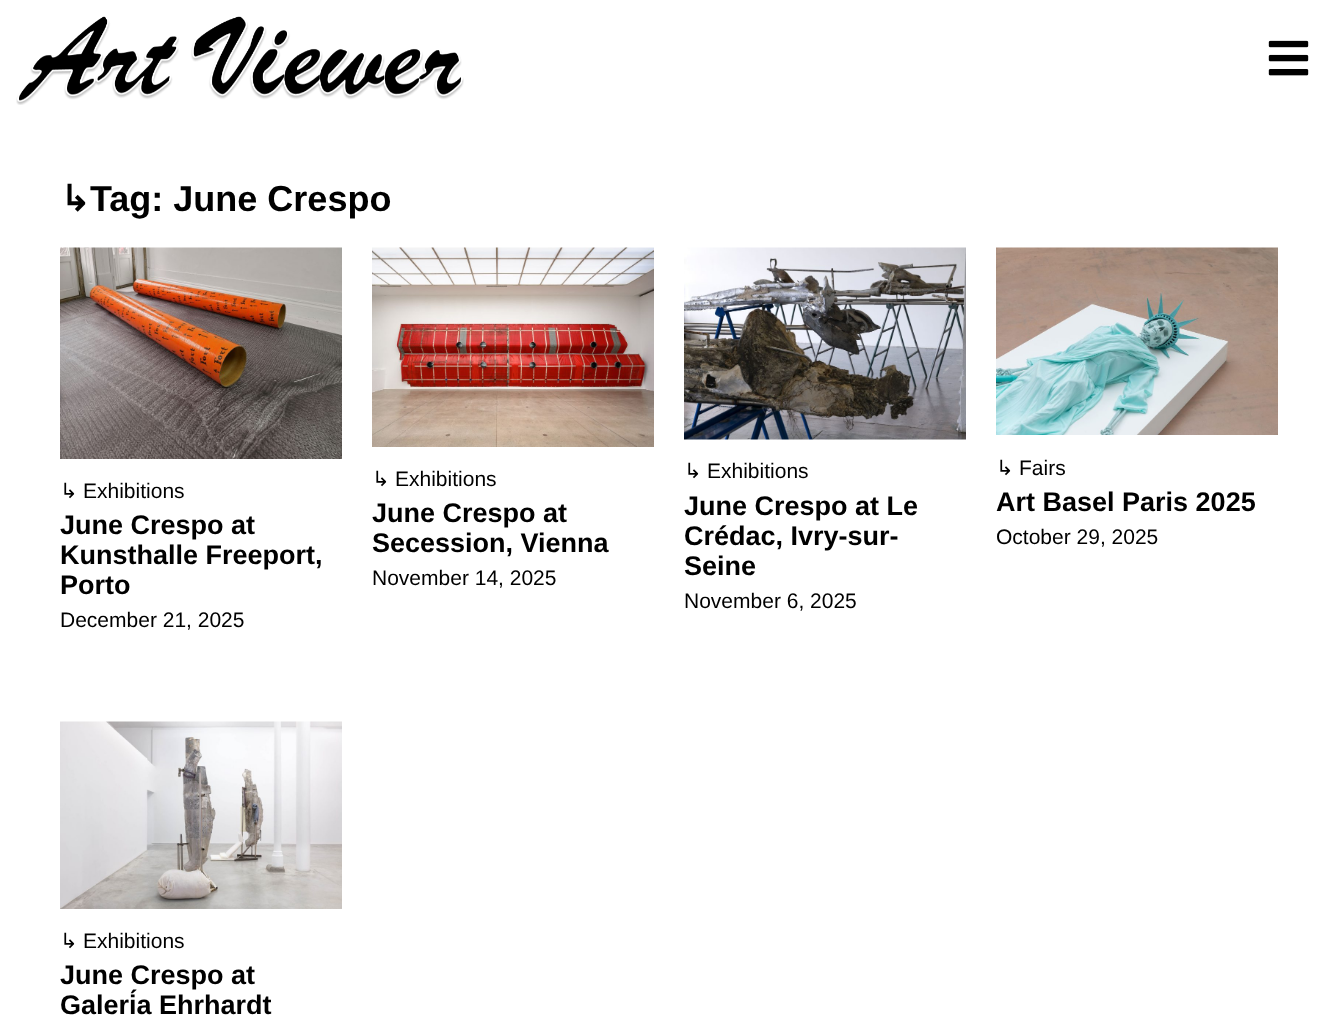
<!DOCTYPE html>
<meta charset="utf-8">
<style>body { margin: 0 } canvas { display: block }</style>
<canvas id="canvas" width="1337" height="1016"></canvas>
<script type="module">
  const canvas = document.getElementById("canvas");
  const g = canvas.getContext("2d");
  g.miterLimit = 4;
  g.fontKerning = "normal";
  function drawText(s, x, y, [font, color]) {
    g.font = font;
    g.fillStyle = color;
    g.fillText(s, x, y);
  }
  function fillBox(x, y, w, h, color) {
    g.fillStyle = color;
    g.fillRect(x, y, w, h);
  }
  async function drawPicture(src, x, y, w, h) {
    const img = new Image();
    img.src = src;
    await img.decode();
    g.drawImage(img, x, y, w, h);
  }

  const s1 = ["bold 36px DejaVu Sans", "#000000"];
  const s2 = ["bold 36px Liberation Sans", "#000000"];
  const s3 = ["21px DejaVu Sans", "#000000"];
  const s4 = ["21px Liberation Sans", "#000000"];
  const s5 = ["bold 27px Liberation Sans", "#000000"];

  fillBox(0, 0, 1337, 1016, "#FFFFFF");
  await drawPicture("pic1.png", 16, 16, 448, 89);
  await drawPicture("pic2.png", 1268, 40, 41, 36);
  drawText("↳", 60, 211, s1);
  drawText("Tag: June Crespo", 90, 211, s2);
  await drawPicture("pic3.png", 60, 247, 282, 212);
  drawText("↳", 60, 498, s3);
  drawText("Exhibitions", 83, 498, s4);
  drawText("June Crespo at", 60, 534, s5);
  drawText("Kunsthalle Freeport,", 60, 564, s5);
  drawText("Porto", 60, 594, s5);
  drawText("December 21, 2025", 60, 627, s4);
  await drawPicture("pic4.png", 372, 247, 282, 200);
  drawText("↳", 372, 486, s3);
  drawText("Exhibitions", 395, 486, s4);
  drawText("June Crespo at", 372, 522, s5);
  drawText("Secession, Vienna", 372, 552, s5);
  drawText("November 14, 2025", 372, 585, s4);
  await drawPicture("pic5.png", 684, 247, 282, 193);
  drawText("↳", 684, 478, s3);
  drawText("Exhibitions", 707, 478, s4);
  drawText("June Crespo at Le", 684, 515, s5);
  drawText("Crédac, Ivry-sur-", 684, 545, s5);
  drawText("Seine", 684, 575, s5);
  drawText("November 6, 2025", 684, 608, s4);
  await drawPicture("pic6.png", 996, 247, 282, 188);
  drawText("↳", 996, 475, s3);
  drawText("Fairs", 1019, 475, s4);
  drawText("Art Basel Paris 2025", 996, 511, s5);
  drawText("October 29, 2025", 996, 544, s4);
  await drawPicture("pic7.png", 60, 721, 282, 188);
  drawText("↳", 60, 948, s3);
  drawText("Exhibitions", 83, 948, s4);
  drawText("June Crespo at", 60, 984, s5);
  drawText("Galería Ehrhardt", 60, 1014, s5);
</script>
